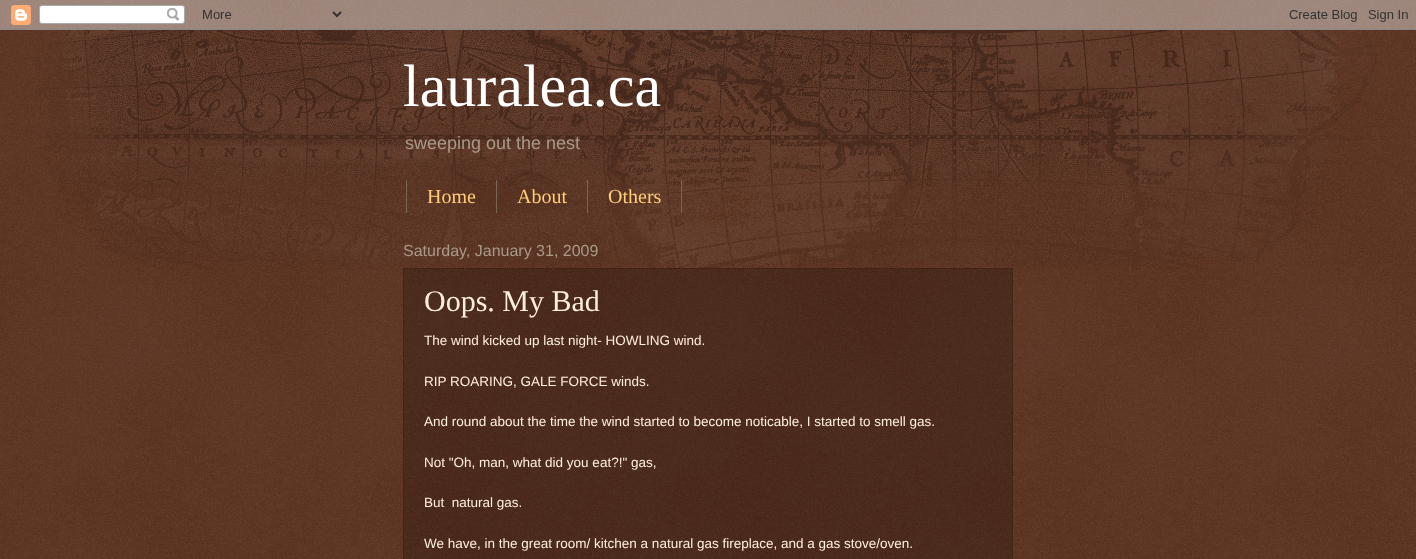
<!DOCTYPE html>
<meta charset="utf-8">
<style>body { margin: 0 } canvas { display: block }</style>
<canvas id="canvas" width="1416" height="559"></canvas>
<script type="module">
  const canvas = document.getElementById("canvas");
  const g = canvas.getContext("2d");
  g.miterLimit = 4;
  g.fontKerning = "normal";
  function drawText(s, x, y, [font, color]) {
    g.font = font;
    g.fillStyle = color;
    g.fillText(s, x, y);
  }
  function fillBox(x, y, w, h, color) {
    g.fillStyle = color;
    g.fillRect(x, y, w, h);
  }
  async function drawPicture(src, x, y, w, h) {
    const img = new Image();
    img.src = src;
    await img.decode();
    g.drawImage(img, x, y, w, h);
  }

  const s1 = ["60px Liberation Serif", "#FFFFFF"];
  const s2 = ["18px Liberation Sans", "#AA9988"];
  const s3 = ["20px Liberation Serif", "#FFCC77"];
  const s4 = ["16px Liberation Sans", "#AA9988"];
  const s5 = ["30px Liberation Serif", "#FFEEDD"];
  const s6 = ["13.5px Liberation Sans", "#FFEEDD"];

  fillBox(0, 0, 1416, 559, "#441500");
  await drawPicture("pic1.png", 0, 0, 1416, 559);
  await drawPicture("pic2.png", 0, 0, 1416, 30);
  await drawPicture("pic3.png", 32, 30, 1352, 240);
  drawText("lauralea.ca", 403, 106, s1);
  drawText("sweeping out the nest", 405, 149, s2);
  fillBox(496, 180, 1, 33, "#776655");
  fillBox(406, 180, 1, 33, "#776655");
  drawText("Home", 427, 203, s3);
  fillBox(587, 180, 1, 33, "#776655");
  drawText("About", 517, 203, s3);
  fillBox(681, 180, 1, 33, "#776655");
  drawText("Others", 608, 203, s3);
  drawText("Saturday, January 31, 2009", 403, 256, s4);
  fillBox(403, 268, 610, 291, "rgba(0, 0, 0, 0.2)");
  g.beginPath();
  g.moveTo(403, 268.5);
  g.lineTo(1013, 268.5);
  g.strokeStyle = "#332211";
  g.setLineDash([1, 1]);
  g.stroke();
  g.beginPath();
  g.moveTo(1012.5, 268);
  g.lineTo(1012.5, 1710);
  g.stroke();
  g.beginPath();
  g.moveTo(403.5, 268);
  g.lineTo(403.5, 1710);
  g.stroke();
  drawText("Oops. My Bad", 424, 311, s5);
  drawText("The wind kicked up last night- HOWLING wind.", 424, 345, s6);
  drawText("RIP ROARING, GALE FORCE winds.", 424, 386, s6);
  drawText("And round about the time the wind started to become noticable, I started to smell gas.", 424, 426, s6);
  drawText("Not \"Oh, man, what did you eat?!\" gas,", 424, 467, s6);
  drawText("But  natural gas.", 424, 507, s6);
  drawText("We have, in the great room/ kitchen a natural gas fireplace, and a gas stove/oven.", 424, 548, s6);
</script>
